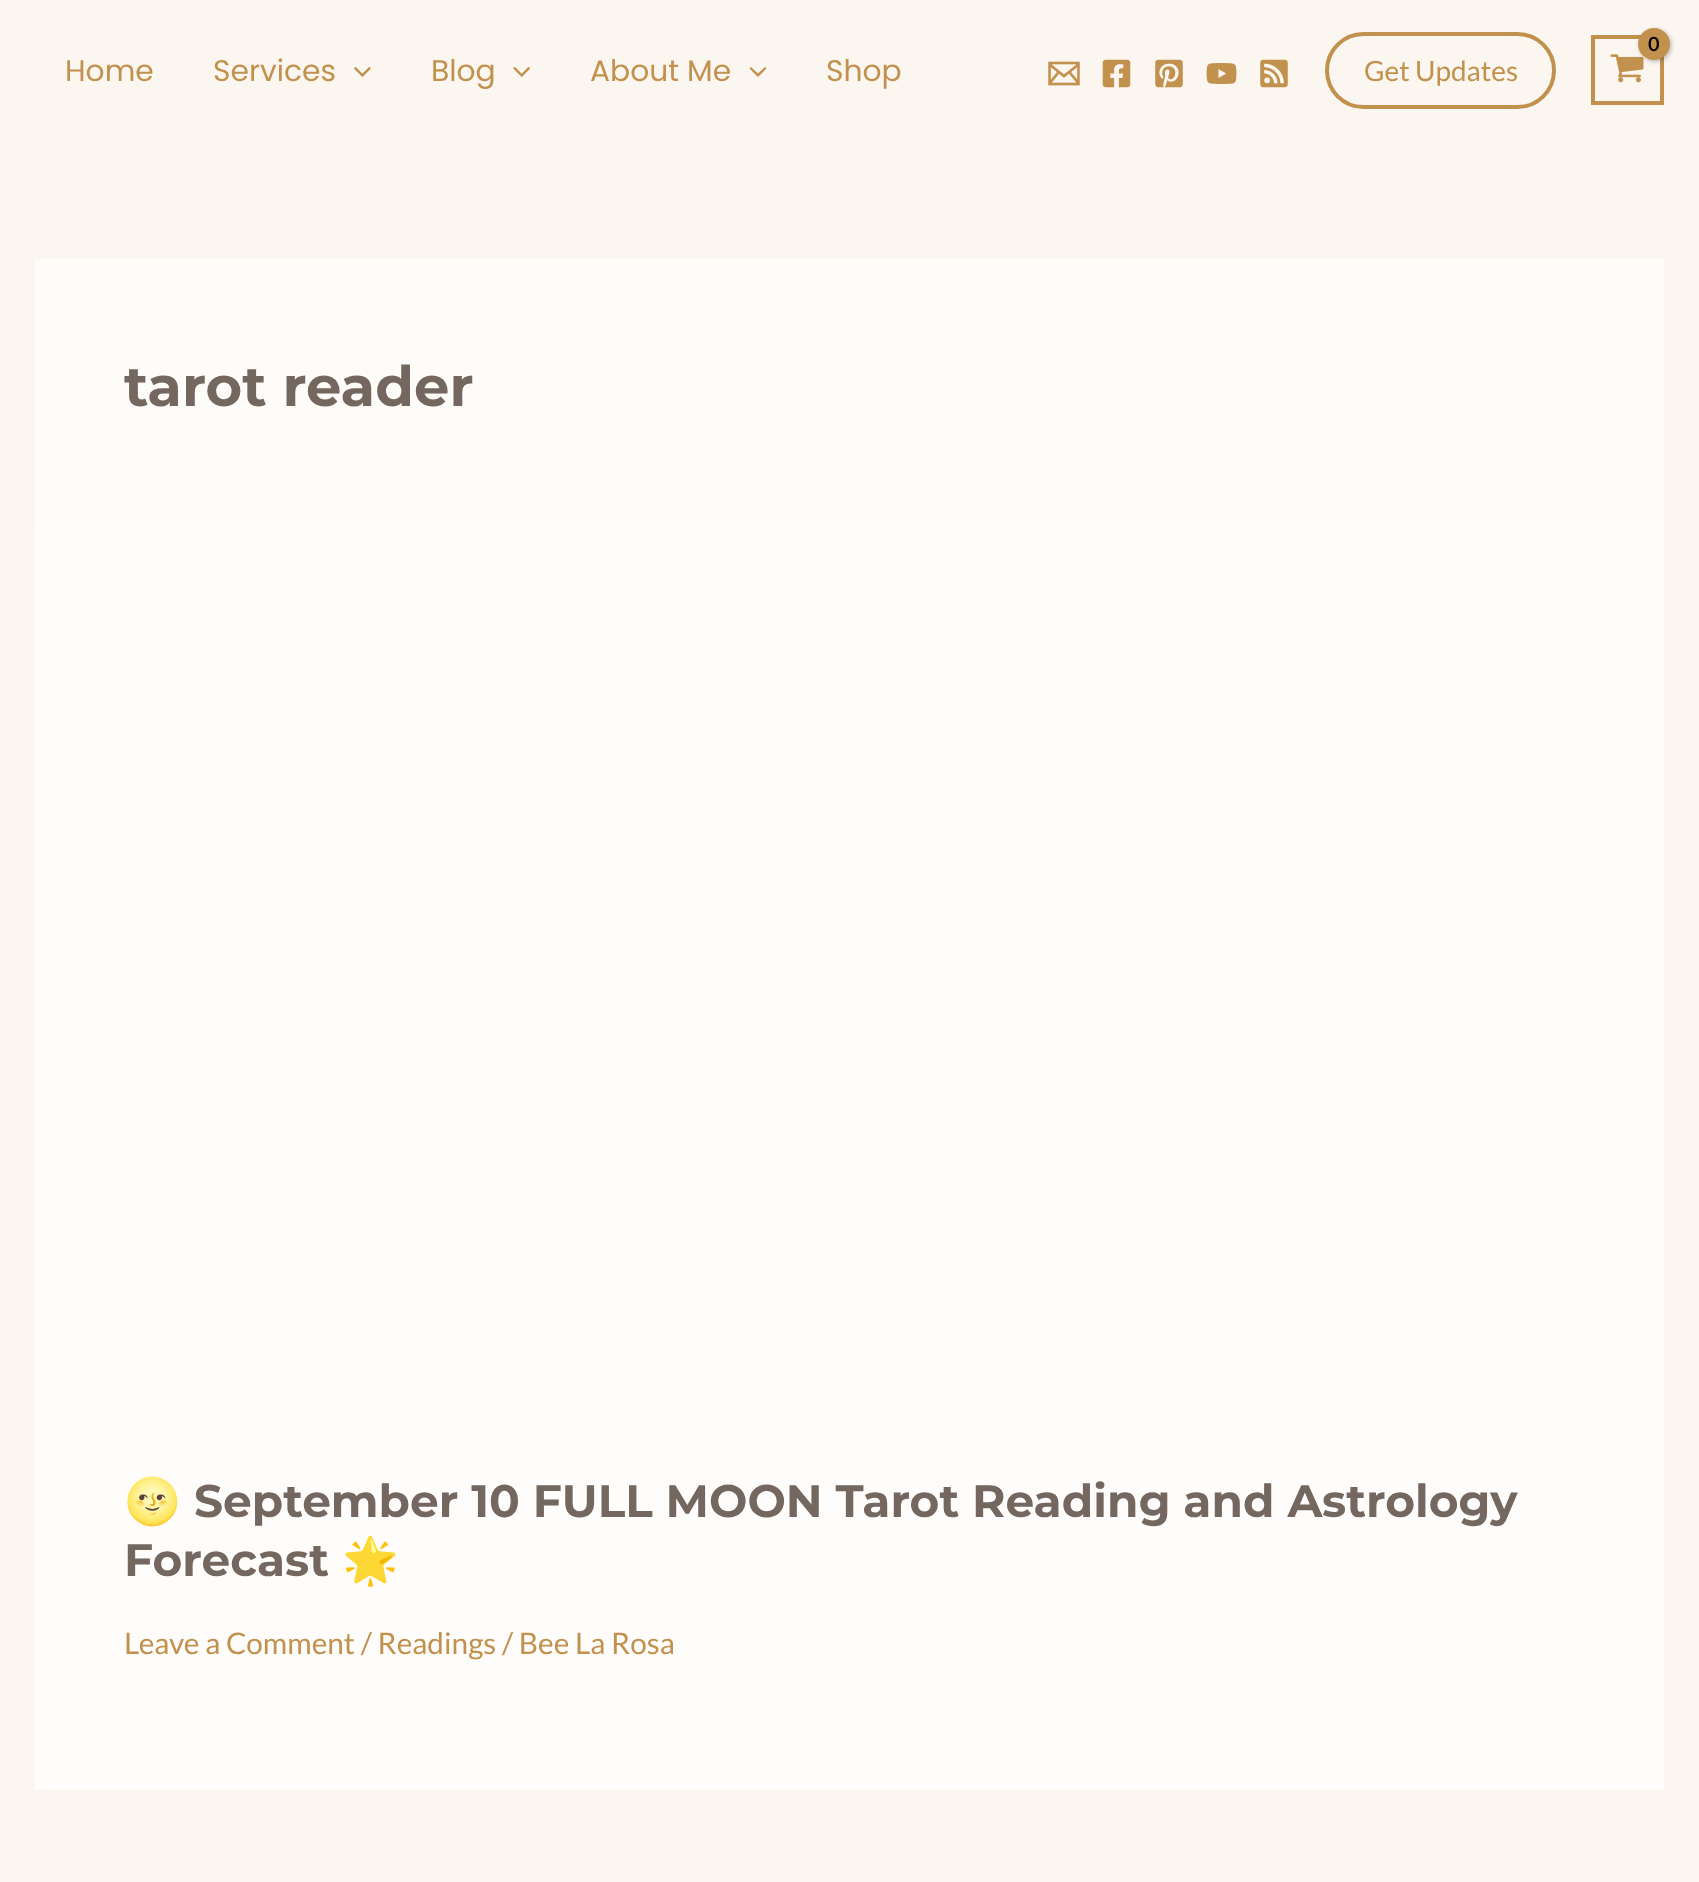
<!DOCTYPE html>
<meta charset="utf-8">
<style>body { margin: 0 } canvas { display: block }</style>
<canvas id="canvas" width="1699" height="1882"></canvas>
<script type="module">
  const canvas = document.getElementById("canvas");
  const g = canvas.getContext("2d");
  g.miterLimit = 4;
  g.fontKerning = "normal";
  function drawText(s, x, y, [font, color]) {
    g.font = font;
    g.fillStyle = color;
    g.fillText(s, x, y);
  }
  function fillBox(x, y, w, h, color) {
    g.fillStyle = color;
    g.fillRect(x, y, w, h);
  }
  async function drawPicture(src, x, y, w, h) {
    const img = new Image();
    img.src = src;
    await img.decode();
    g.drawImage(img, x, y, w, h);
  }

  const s1 = ["29.75px Poppins", "#C2914E"];
  const s2 = ["bold 19px Lato", "#000000"];
  const s3 = ["28px Lato", "#C2914E"];
  const s4 = ["100 56px Montserrat", "#74675F"];
  const s5 = ["45.5px Noto Color Emoji", "#74675F"];
  const s6 = ["100 45.5px Montserrat", "#74675F"];
  const s7 = ["29.75px Lato", "#C2914E"];

  fillBox(0, 0, 1699, 1882, "#FBF6F0");
  drawText("Home", 65, 81, s1);
  drawText("Services", 213, 81, s1);
  await drawPicture("pic1.png", 354, 66, 17, 11);
  drawText("Blog", 431, 81, s1);
  await drawPicture("pic2.png", 513, 66, 17, 11);
  drawText("About Me", 590, 81, s1);
  g.beginPath();
  g.moveTo(749.5, 68.5);
  g.lineTo(758, 77);
  g.lineTo(766.5, 68.5);
  g.lineTo(765, 67);
  g.lineTo(758, 73.5);
  g.lineTo(751, 67);
  g.closePath();
  g.fill();
  drawText("Shop", 826, 81, s1);
  g.strokeStyle = "#C2914E";
  g.lineWidth = 4;
  g.strokeRect(1593, 37, 69, 66);
  await drawPicture("pic3.png", 1610, 54, 34, 29);
  g.fillStyle = "rgba(0, 0, 0, 0.3)";
  g.filter = "blur(2.5px)";
  g.beginPath();
  g.roundRect(1640, 30, 31, 31, 15.5);
  g.fill();
  g.filter = "none";
  g.fillStyle = "#C2914E";
  g.beginPath();
  g.arc(1654, 44, 16, 0, Math.PI * 2);
  g.fill();
  g.letterSpacing = "-1px";
  drawText("0", 1648, 51, s2);
  await drawPicture("pic4.png", 1048, 61, 32, 25);
  await drawPicture("pic5.png", 1102, 59, 29, 29);
  await drawPicture("pic6.png", 1155, 59, 28, 29);
  await drawPicture("pic7.png", 1206, 63, 31, 21);
  await drawPicture("pic8.png", 1260, 59, 28, 29);
  g.beginPath();
  g.roundRect(1327, 34, 227, 73, 36.5);
  g.stroke();
  g.letterSpacing = "0px";
  drawText("Get Updates", 1364, 81, s3);
  fillBox(35, 259, 1629, 264, "#FDFCF9");
  drawText("tarot reader", 124, 406, s4);
  fillBox(35, 523, 1629, 1267, "#FFFDFC");
  drawText("🌝", 124, 1517, s5);
  drawText("September 10 FULL MOON Tarot Reading and Astrology", 194, 1517, s6);
  drawText("Forecast", 124, 1576, s6);
  drawText("🌟", 342, 1576, s5);
  drawText("Leave a Comment / Readings / Bee La Rosa", 124, 1654, s7);
</script>
